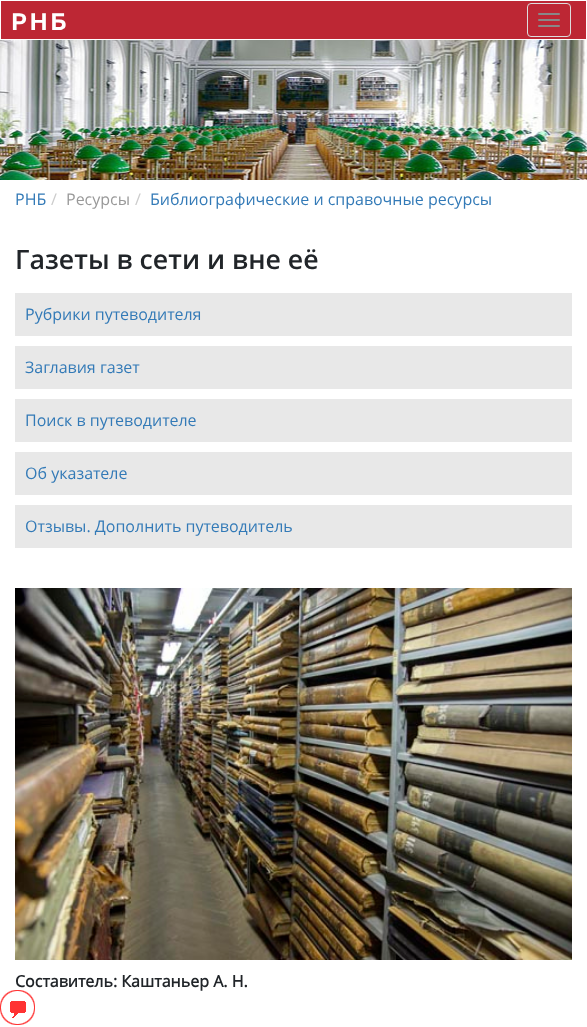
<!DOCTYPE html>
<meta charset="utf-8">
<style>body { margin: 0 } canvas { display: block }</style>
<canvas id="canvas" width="587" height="1027"></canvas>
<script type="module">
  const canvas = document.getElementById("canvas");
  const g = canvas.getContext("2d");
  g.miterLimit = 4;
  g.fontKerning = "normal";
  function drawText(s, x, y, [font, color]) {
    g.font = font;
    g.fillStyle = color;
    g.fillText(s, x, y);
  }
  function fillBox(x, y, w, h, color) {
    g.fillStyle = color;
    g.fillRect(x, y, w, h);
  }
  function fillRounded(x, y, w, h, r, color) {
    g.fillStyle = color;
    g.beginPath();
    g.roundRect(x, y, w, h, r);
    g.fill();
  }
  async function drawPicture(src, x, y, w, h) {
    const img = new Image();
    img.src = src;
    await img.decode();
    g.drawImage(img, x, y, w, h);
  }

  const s1 = ["600 24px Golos", "#FFFFFF"];
  const s2 = ["16px Open Sans", "#337AB7"];
  const s3 = ["16px Open Sans", "#CCCCCC"];
  const s4 = ["16px Open Sans", "#999999"];
  const s5 = ["600 26.75px Open Sans", "#212529"];
  const s6 = ["bold 16px Open Sans", "#212529"];

  fillBox(0, 0, 587, 1027, "#FFFFFF");
  await drawPicture("pic1.png", 0, 40, 587, 140);
  fillBox(1, 1, 585, 38, "#BD2734");
  g.letterSpacing = "2.5px";
  drawText("РНБ", 11, 30, s1);
  g.beginPath();
  g.roundRect(527.5, 3.5, 43, 33, 3.5);
  g.strokeStyle = "#DDDDDD";
  g.stroke();
  fillRounded(538, 13, 22, 2, 1, "#888888");
  fillRounded(538, 19, 22, 2, 1, "#888888");
  fillRounded(538, 25, 22, 2, 1, "#888888");
  g.letterSpacing = "0px";
  drawText("РНБ", 15, 205, s2);
  drawText("/", 51, 205, s3);
  drawText("Ресурсы", 66, 205, s4);
  drawText("/", 135, 205, s3);
  drawText("Библиографические и справочные ресурсы", 150, 205, s2);
  drawText("Газеты в сети и вне её", 15, 269, s5);
  fillBox(15, 293, 557, 43, "#E8E8E8");
  drawText("Рубрики путеводителя", 25, 320, s2);
  fillBox(15, 346, 557, 43, "#E8E8E8");
  drawText("Заглавия газет", 25, 373, s2);
  fillBox(15, 399, 557, 43, "#E8E8E8");
  drawText("Поиск в путеводителе", 25, 426, s2);
  fillBox(15, 452, 557, 43, "#E8E8E8");
  drawText("Об указателе", 25, 479, s2);
  fillBox(15, 505, 557, 43, "#E8E8E8");
  drawText("Отзывы. Дополнить путеводитель", 25, 532, s2);
  await drawPicture("pic2.png", 15, 588, 557, 372);
  drawText("Составитель: Каштаньер А. Н.", 15, 987, s6);
  await drawPicture("pic3.png", 0, 990, 35, 35);
</script>
